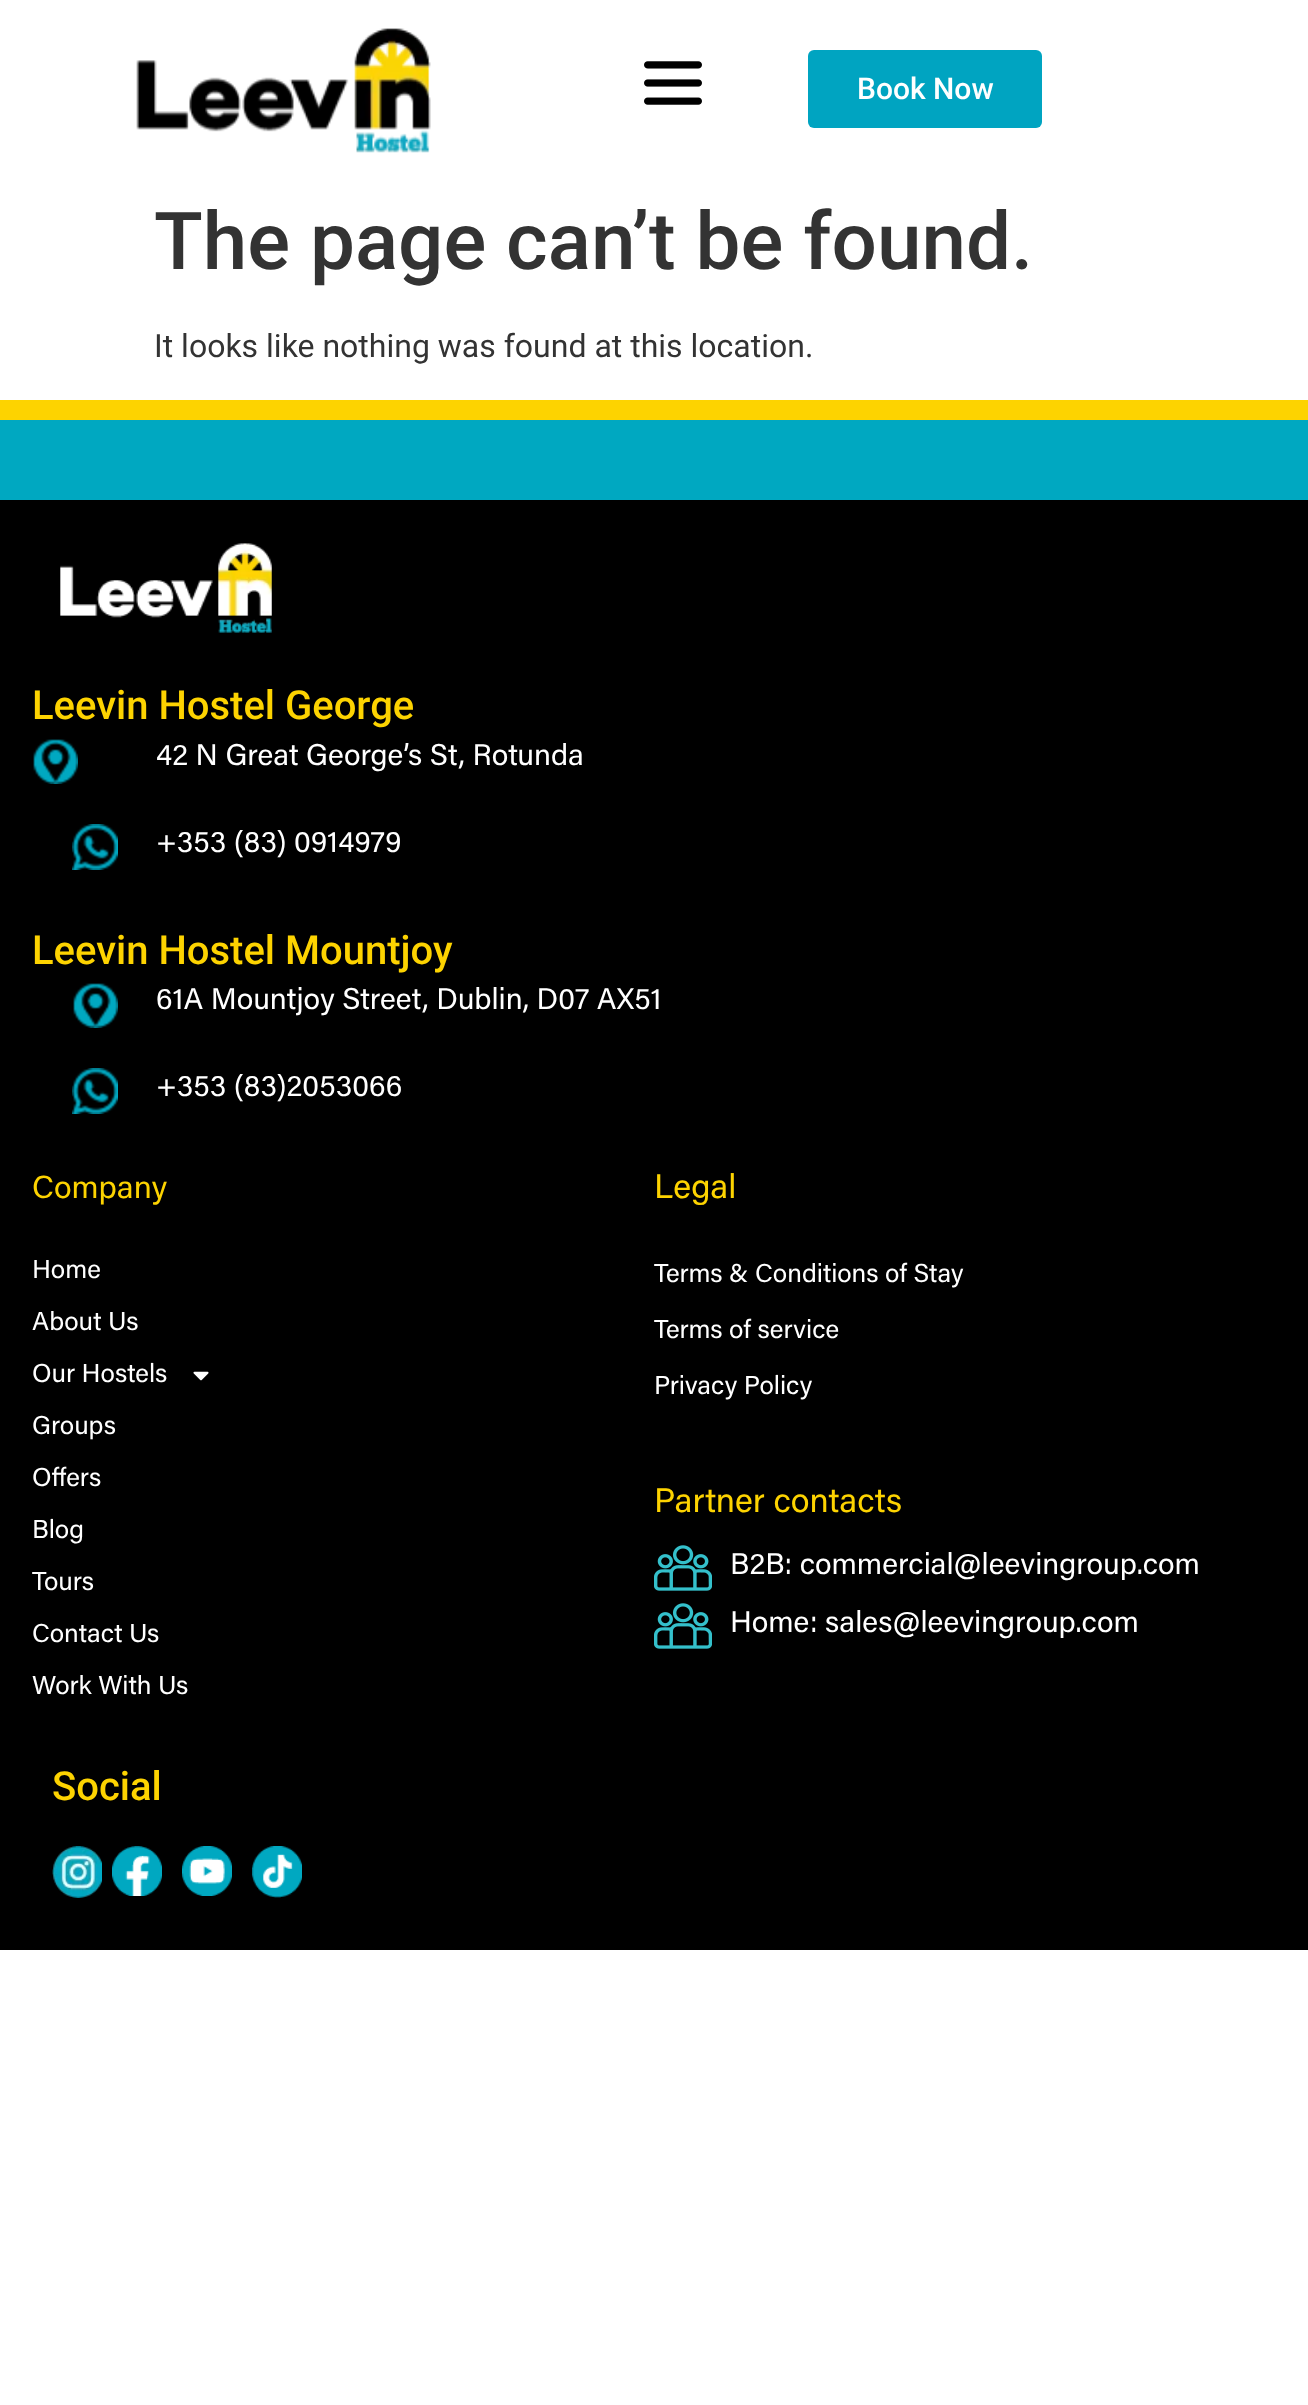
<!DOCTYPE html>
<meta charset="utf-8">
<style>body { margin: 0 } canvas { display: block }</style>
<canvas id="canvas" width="1308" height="2405"></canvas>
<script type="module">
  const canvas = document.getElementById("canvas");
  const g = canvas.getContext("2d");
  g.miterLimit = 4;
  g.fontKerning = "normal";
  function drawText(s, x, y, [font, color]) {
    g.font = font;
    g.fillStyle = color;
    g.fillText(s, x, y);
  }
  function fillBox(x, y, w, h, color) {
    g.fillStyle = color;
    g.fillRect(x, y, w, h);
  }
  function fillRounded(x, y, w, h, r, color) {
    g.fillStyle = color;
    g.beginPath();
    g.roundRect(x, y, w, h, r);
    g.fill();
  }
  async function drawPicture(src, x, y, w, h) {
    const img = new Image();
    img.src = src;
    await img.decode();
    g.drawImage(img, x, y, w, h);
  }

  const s1 = ["500 30px Roboto", "#FFFFFF"];
  const s2 = ["500 80px Roboto", "#333333"];
  const s3 = ["32px Roboto", "#333333"];
  const s4 = ["500 40px Roboto", "#FDD300"];
  const s5 = ["30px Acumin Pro", "#FFFFFF"];
  const s6 = ["32px Acumin Pro", "#FDD300"];
  const s7 = ["26px Acumin Pro", "#FFFFFF"];
  const s8 = ["34px Acumin Pro", "#FDD300"];

  fillBox(0, 0, 1308, 2405, "#FFFFFF");
  await drawPicture("pic1.png", 136, 28, 295, 125);
  await drawPicture("pic2.png", 644, 61, 58, 44);
  fillRounded(808, 50, 234, 78, 6, "#00A4C1");
  drawText("Book Now", 857, 99, s1);
  drawText("The page can’t be found.", 154, 269, s2);
  drawText("It looks like nothing was found at this location.", 154, 357, s3);
  fillBox(0, 400, 1308, 20, "#FDD300");
  fillBox(0, 420, 1308, 80, "#00A8C1");
  fillBox(0, 500, 1308, 1450, "#000000");
  await drawPicture("pic3.png", 60, 543, 212, 90);
  drawText("Leevin Hostel George", 32, 719, s4);
  await drawPicture("pic4.png", 33, 739, 45, 45);
  drawText("42 N Great George’s St, Rotunda", 156, 765, s5);
  await drawPicture("pic5.png", 72, 824, 46, 46);
  drawText("+353 (83) 0914979", 156, 852, s5);
  drawText("Leevin Hostel Mountjoy", 32, 964, s4);
  await drawPicture("pic4.png", 73, 983, 45, 45);
  drawText("61A Mountjoy Street, Dublin, D07 AX51", 156, 1009, s5);
  await drawPicture("pic5.png", 72, 1068, 46, 46);
  drawText("+353 (83)2053066", 156, 1096, s5);
  drawText("Company", 32, 1198, s6);
  drawText("Home", 32, 1278, s7);
  drawText("About Us", 32, 1330, s7);
  drawText("Our Hostels", 32, 1382, s7);
  await drawPicture("pic6.png", 193, 1371, 16, 10);
  drawText("Groups", 32, 1434, s7);
  drawText("Offers", 32, 1486, s7);
  drawText("Blog", 32, 1538, s7);
  drawText("Tours", 32, 1590, s7);
  drawText("Contact Us", 32, 1642, s7);
  drawText("Work With Us", 32, 1694, s7);
  drawText("Legal", 654, 1198, s8);
  drawText("Terms & Conditions of Stay", 654, 1282, s7);
  drawText("Terms of service", 654, 1338, s7);
  drawText("Privacy Policy", 654, 1394, s7);
  drawText("Partner contacts", 654, 1512, s8);
  await drawPicture("pic7.png", 654, 1545, 58, 46);
  drawText("B2B: commercial@leevingroup.com", 730, 1574, s5);
  await drawPicture("pic7.png", 654, 1603, 58, 46);
  drawText("Home: sales@leevingroup.com", 730, 1632, s5);
  drawText("Social", 52, 1800, s4);
  await drawPicture("pic8.png", 52, 1846, 50, 52);
  await drawPicture("pic9.png", 112, 1846, 50, 50);
  await drawPicture("pic10.png", 182, 1846, 50, 50);
  await drawPicture("pic11.png", 252, 1846, 50, 52);
</script>
